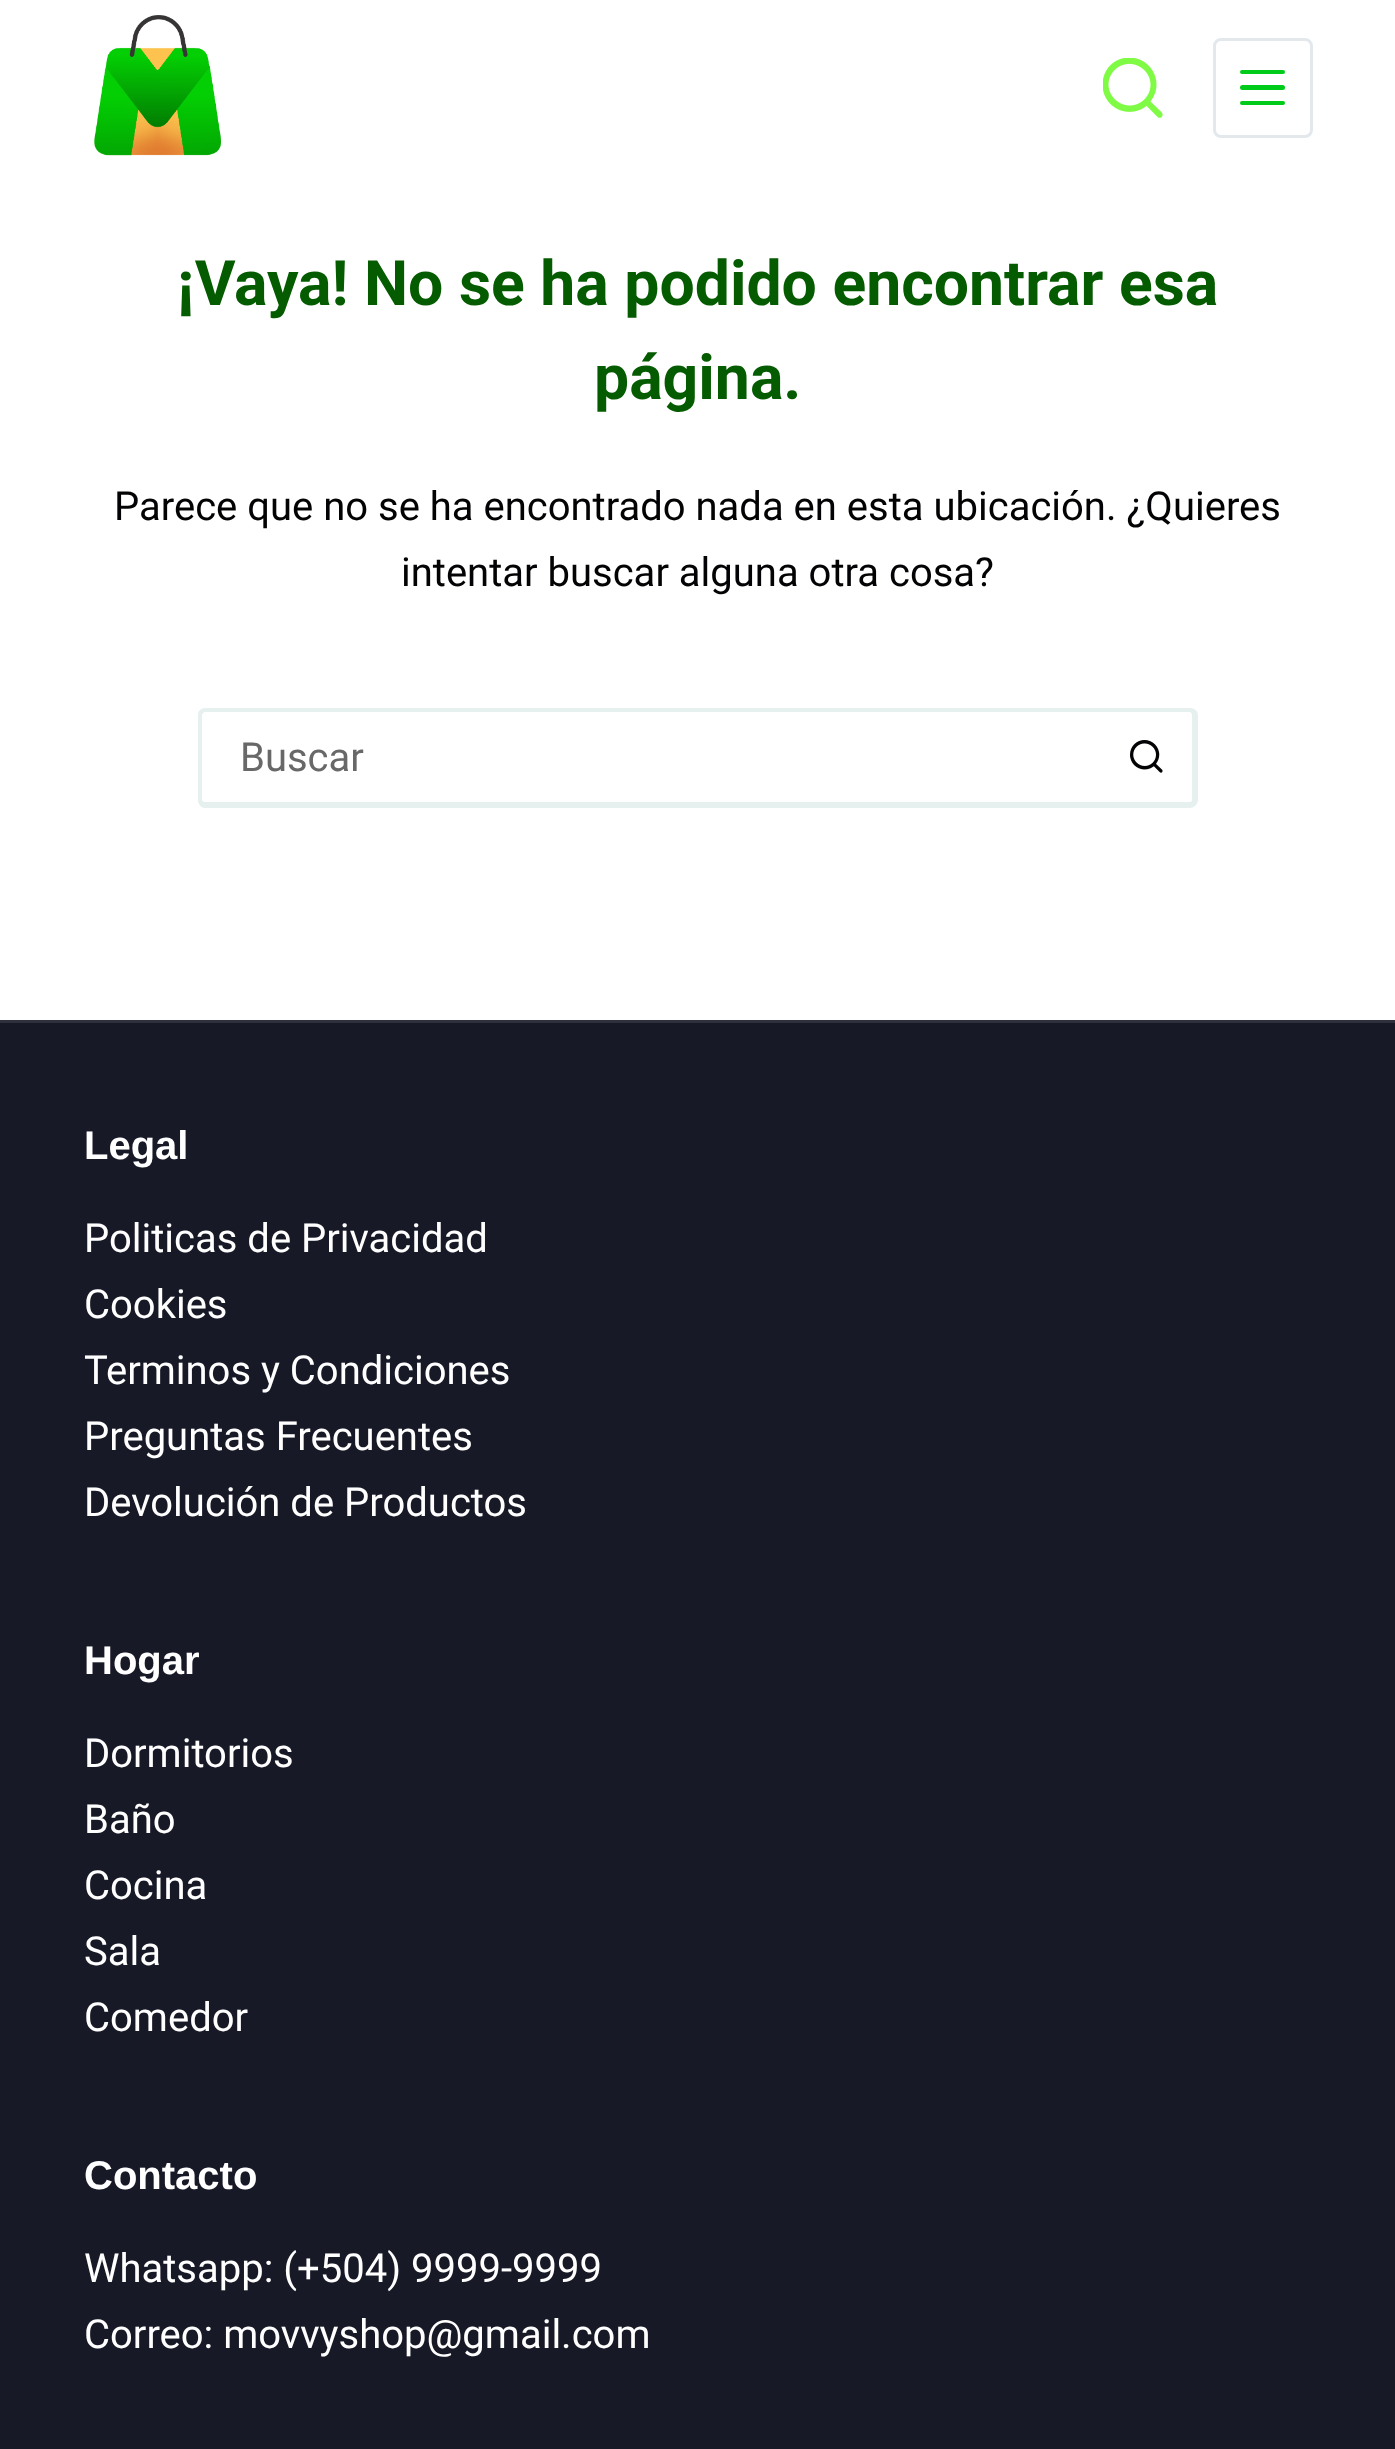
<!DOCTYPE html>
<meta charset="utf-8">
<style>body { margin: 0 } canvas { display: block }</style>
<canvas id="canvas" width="1395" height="2449"></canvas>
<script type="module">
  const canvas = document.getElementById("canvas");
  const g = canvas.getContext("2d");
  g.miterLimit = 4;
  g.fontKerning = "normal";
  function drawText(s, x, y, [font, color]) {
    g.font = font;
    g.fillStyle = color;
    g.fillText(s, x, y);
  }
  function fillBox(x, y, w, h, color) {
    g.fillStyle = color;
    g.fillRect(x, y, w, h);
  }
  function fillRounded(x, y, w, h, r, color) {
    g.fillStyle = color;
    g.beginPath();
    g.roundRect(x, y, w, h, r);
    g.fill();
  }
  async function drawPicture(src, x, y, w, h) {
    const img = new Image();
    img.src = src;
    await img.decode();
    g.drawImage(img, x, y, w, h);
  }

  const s1 = ["bold 62.5px Roboto", "#055B00"];
  const s2 = ["40px Roboto", "#030305"];
  const s3 = ["40px Roboto", "#686869"];
  const s4 = ["bold 40px Liberation Sans", "#FFFFFF"];
  const s5 = ["40px Roboto", "#FFFFFF"];

  fillBox(0, 0, 1395, 2449, "#FFFFFF");
  await drawPicture("pic1.png", 94, 15, 127, 141);
  await drawPicture("pic2.png", 1103, 58, 60, 60);
  g.beginPath();
  g.roundRect(1214.5, 39.5, 97, 97, 6.5);
  g.strokeStyle = "#E3E8ED";
  g.lineWidth = 3;
  g.stroke();
  fillRounded(1240, 70, 45, 4, 2, "#00CB1B");
  fillRounded(1240, 85, 45, 5, 2.5, "#00CB1B");
  fillRounded(1240, 101, 45, 4, 2, "#00CB1B");
  drawText("¡Vaya! No se ha podido encontrar esa", 177, 305, s1);
  drawText("página.", 594, 399, s1);
  drawText("Parece que no se ha encontrado nada en esta ubicación. ¿Quieres", 114, 520, s2);
  drawText("intentar buscar alguna otra cosa?", 401, 586, s2);
  g.fillStyle = "#E6F0EE";
  g.beginPath();
  g.moveTo(205, 708);
  g.lineTo(1098, 708);
  g.lineTo(1098, 808);
  g.lineTo(205, 808);
  g.bezierCurveTo(201, 808, 198, 804, 198, 800);
  g.lineTo(198, 715);
  g.bezierCurveTo(198, 711, 201, 708, 205, 708);
  g.closePath();
  g.moveTo(205, 712);
  g.lineTo(1098, 712);
  g.lineTo(1098, 802);
  g.lineTo(205, 802);
  g.bezierCurveTo(204, 802, 202, 801, 202, 800);
  g.lineTo(202, 715);
  g.bezierCurveTo(202, 714, 204, 712, 205, 712);
  g.closePath();
  g.fill("evenodd");
  drawText("Buscar", 240, 771, s3);
  g.fillStyle = "#E6F0EE";
  g.beginPath();
  g.moveTo(1098, 708);
  g.lineTo(1190, 708);
  g.bezierCurveTo(1194, 708, 1198, 711, 1198, 715);
  g.lineTo(1198, 800);
  g.bezierCurveTo(1198, 804, 1194, 808, 1190, 808);
  g.lineTo(1098, 808);
  g.closePath();
  g.moveTo(1098, 712);
  g.lineTo(1190, 712);
  g.bezierCurveTo(1191, 712, 1192, 714, 1192, 715);
  g.lineTo(1192, 800);
  g.bezierCurveTo(1192, 801, 1191, 802, 1190, 802);
  g.lineTo(1098, 802);
  g.closePath();
  g.fill("evenodd");
  await drawPicture("pic3.png", 1130, 740, 33, 33);
  fillBox(0, 1023, 1395, 1426, "#171927");
  fillBox(0, 1020, 1395, 3, "#2E303D");
  drawText("Legal", 84, 1159, s4);
  drawText("Politicas de Privacidad", 84, 1252, s5);
  drawText("Cookies", 84, 1318, s5);
  drawText("Terminos y Condiciones", 84, 1384, s5);
  drawText("Preguntas Frecuentes", 84, 1450, s5);
  drawText("Devolución de Productos", 84, 1516, s5);
  drawText("Hogar", 84, 1674, s4);
  drawText("Dormitorios", 84, 1767, s5);
  drawText("Baño", 84, 1833, s5);
  drawText("Cocina", 84, 1899, s5);
  drawText("Sala", 84, 1965, s5);
  drawText("Comedor", 84, 2031, s5);
  drawText("Contacto", 84, 2189, s4);
  drawText("Whatsapp: (+504) 9999-9999", 84, 2282, s5);
  drawText("Correo: movvyshop@gmail.com", 84, 2348, s5);
</script>
